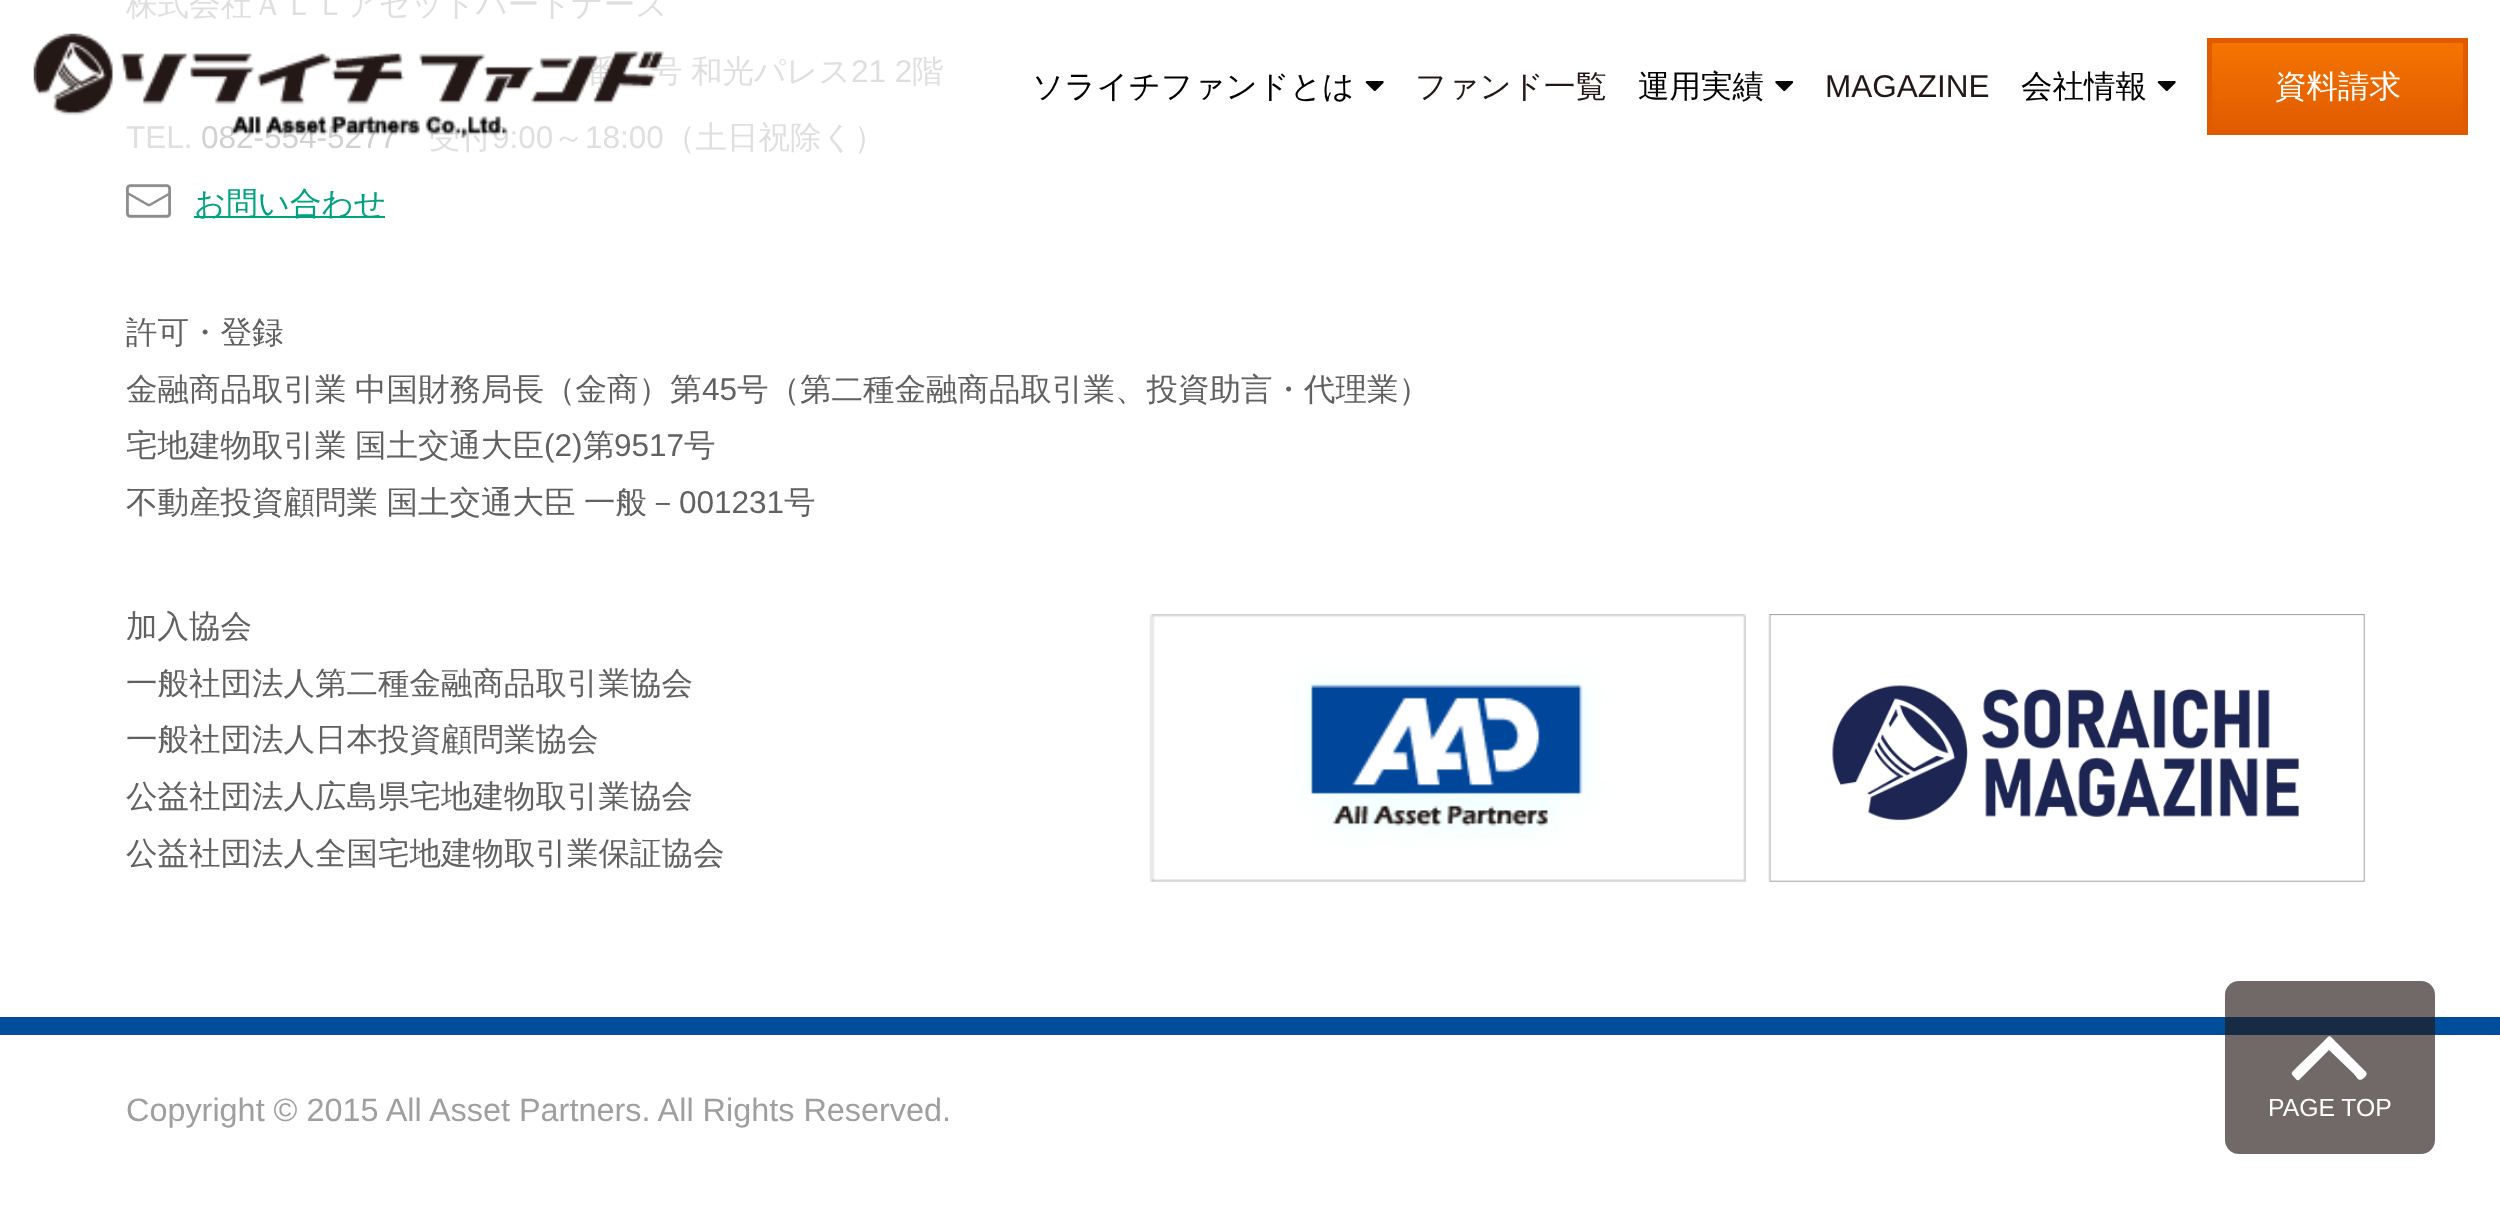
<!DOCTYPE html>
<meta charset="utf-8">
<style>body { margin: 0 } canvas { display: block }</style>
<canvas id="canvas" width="2500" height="1220"></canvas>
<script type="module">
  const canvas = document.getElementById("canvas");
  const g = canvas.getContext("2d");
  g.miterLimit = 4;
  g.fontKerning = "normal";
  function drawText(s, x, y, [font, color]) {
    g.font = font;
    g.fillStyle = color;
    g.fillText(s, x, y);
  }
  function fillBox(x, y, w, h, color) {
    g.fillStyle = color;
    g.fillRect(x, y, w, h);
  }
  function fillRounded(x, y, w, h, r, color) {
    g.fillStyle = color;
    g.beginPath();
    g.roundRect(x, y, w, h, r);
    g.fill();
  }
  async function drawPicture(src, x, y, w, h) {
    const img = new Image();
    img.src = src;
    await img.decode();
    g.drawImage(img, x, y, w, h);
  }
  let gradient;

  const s1 = ["500 31.5px WenQuanYi Zen Hei", "#DFDFDF"];
  const s2 = ["31.5px Liberation Sans", "#DFDFDF"];
  const s3 = ["31.5px Liberation Sans", "#D3D1D0"];
  const s4 = ["500 31.5px WenQuanYi Zen Hei", "#00A281"];
  const s5 = ["500 31.5px WenQuanYi Zen Hei", "#616161"];
  const s6 = ["31.5px Liberation Sans", "#616161"];
  const s7 = ["32.4px Liberation Sans", "#9F9F9F"];
  const s8 = ["500 31.5px WenQuanYi Zen Hei", "#000000"];
  const s9 = ["500 31.5px WenQuanYi Zen Hei", "#231815"];
  const s10 = ["31.5px Liberation Sans", "#231815"];
  const s11 = ["500 31.5px WenQuanYi Zen Hei", "#FFFFFF"];
  const s12 = ["24.75px Liberation Sans", "#FFFFFF"];

  fillBox(0, 0, 2500, 1220, "#FFFFFF");
  drawText("株式会社ＡＬＬアセットパートナーズ", 126, 15, s1);
  drawText("番", 585, 82, s1);
  drawText("号", 651, 82, s1);
  drawText("和光パレス", 691, 82, s1);
  drawText("21 2", 851, 82, s2);
  drawText("階", 912, 82, s1);
  drawText("TEL.", 126, 148, s2);
  drawText("082-554-5277", 201, 148, s3);
  drawText("受付", 429, 148, s1);
  drawText("9:00", 492, 148, s2);
  drawText("～", 553, 148, s1);
  drawText("18:00", 585, 148, s2);
  drawText("（土日祝除く）", 664, 148, s1);
  await drawPicture("pic1.png", 126, 184, 45, 34);
  fillBox(194, 216, 191, 2, "#00A281");
  drawText("お問い合わせ", 194, 214, s4);
  drawText("許可・登録", 126, 343, s5);
  g.wordSpacing = "-1px";
  drawText("金融商品取引業 中国財務局長（金商）第", 126, 400, s5);
  g.wordSpacing = "0px";
  drawText("45", 702, 400, s6);
  drawText("号（第二種金融商品取引業、投資助言・代理業）", 737, 400, s5);
  g.wordSpacing = "-1px";
  drawText("宅地建物取引業 国土交通大臣", 126, 456, s5);
  g.wordSpacing = "0px";
  drawText("(2)", 544, 456, s6);
  drawText("第", 583, 456, s5);
  drawText("9517", 614, 456, s6);
  drawText("号", 684, 456, s5);
  g.wordSpacing = "-1px";
  drawText("不動産投資顧問業 国土交通大臣 一般－", 126, 513, s5);
  g.wordSpacing = "0px";
  drawText("001231", 679, 513, s6);
  drawText("号", 784, 513, s5);
  drawText("加入協会", 126, 637, s5);
  drawText("一般社団法人第二種金融商品取引業協会", 126, 694, s5);
  drawText("一般社団法人日本投資顧問業協会", 126, 750, s5);
  drawText("公益社団法人広島県宅地建物取引業協会", 126, 807, s5);
  drawText("公益社団法人全国宅地建物取引業保証協会", 126, 864, s5);
  await drawPicture("pic2.png", 1149, 614, 597, 268);
  await drawPicture("pic3.png", 1768, 614, 597, 268);
  fillBox(0, 1017, 2500, 18, "#004D9B");
  drawText("Copyright © 2015 All Asset Partners. All Rights Reserved.", 126, 1121, s7);
  await drawPicture("pic4.png", 33, 33, 631, 105);
  drawText("ソライチファンドとは", 1032, 97, s8);
  await drawPicture("pic5.png", 1365, 81, 19, 11);
  drawText("ファンド一覧", 1415, 97, s9);
  drawText("運用実績", 1638, 97, s8);
  await drawPicture("pic6.png", 1775, 81, 18, 11);
  drawText("MAGAZINE", 1825, 97, s10);
  drawText("会社情報", 2021, 97, s8);
  await drawPicture("pic5.png", 2157, 81, 19, 11);
  gradient = g.createLinearGradient(2338, 43, 2338, 131);
  gradient.addColorStop(0, "#F47400");
  gradient.addColorStop(1, "#E05B00");
  g.fillStyle = gradient;
  g.fillRect(2212, 43, 251, 87);
  g.strokeStyle = "#E05B00";
  g.lineWidth = 5;
  g.strokeRect(2209.5, 40.5, 256, 92);
  drawText("資料請求", 2275, 97, s11);
  fillRounded(2225, 981, 210, 173, 14, "rgba(35, 24, 21, 0.65)");
  g.fillStyle = "#FFFFFF";
  g.beginPath();
  g.moveTo(2366, 1072);
  g.bezierCurveTo(2368, 1074, 2365, 1077, 2364, 1078);
  g.bezierCurveTo(2359, 1082, 2358, 1079, 2354, 1074);
  g.lineTo(2329, 1050);
  g.lineTo(2299, 1080);
  g.bezierCurveTo(2297, 1081, 2296, 1079, 2295, 1078);
  g.bezierCurveTo(2289, 1072, 2292, 1073, 2298, 1066);
  g.lineTo(2322, 1043);
  g.bezierCurveTo(2331, 1034, 2328, 1034, 2337, 1043);
  g.closePath();
  g.fill();
  drawText("PAGE TOP", 2268, 1116, s12);
</script>
